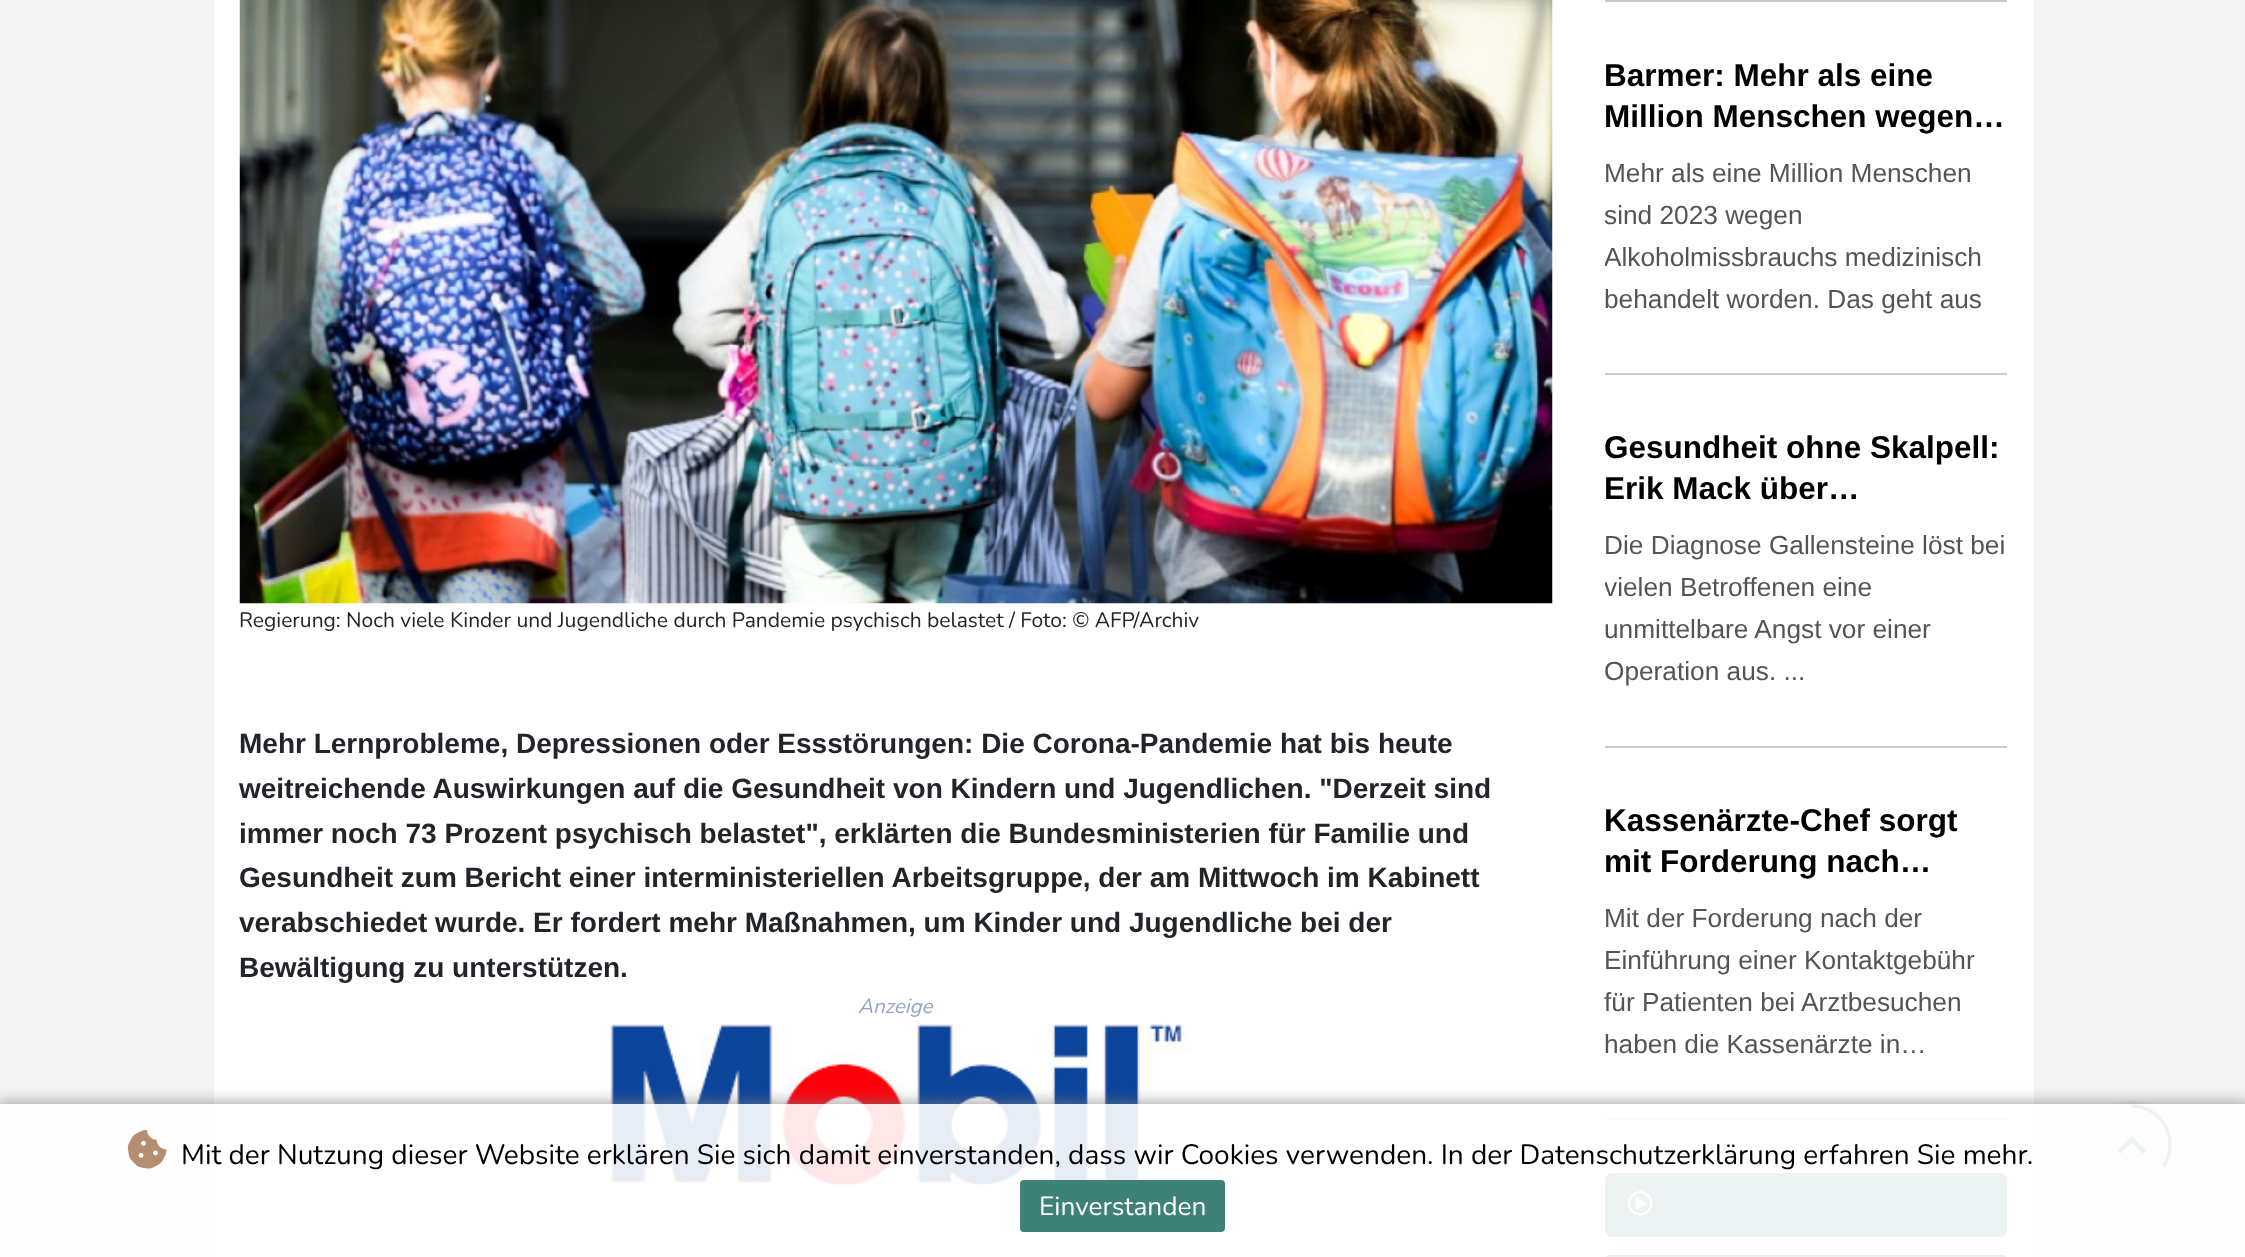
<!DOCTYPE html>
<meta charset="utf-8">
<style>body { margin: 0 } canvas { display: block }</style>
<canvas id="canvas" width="2245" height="1257"></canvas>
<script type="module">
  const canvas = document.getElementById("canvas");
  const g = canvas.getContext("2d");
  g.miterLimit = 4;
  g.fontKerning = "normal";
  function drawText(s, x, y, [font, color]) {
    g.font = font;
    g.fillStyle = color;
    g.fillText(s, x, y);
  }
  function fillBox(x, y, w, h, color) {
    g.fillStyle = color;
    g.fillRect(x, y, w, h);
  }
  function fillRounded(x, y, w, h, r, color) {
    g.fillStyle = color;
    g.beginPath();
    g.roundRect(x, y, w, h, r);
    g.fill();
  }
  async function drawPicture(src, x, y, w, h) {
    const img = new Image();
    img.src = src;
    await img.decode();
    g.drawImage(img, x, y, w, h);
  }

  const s1 = ["200 21px Nunito", "#212529"];
  const s2 = ["bold 28px Liberation Sans", "#212529"];
  const s3 = ["italic 200 20.5px Nunito", "#92A5C3"];
  const s4 = ["bold 31.5px Liberation Sans", "#000000"];
  const s5 = ["26.25px Liberation Sans", "#545454"];
  const s6 = ["200 28px Nunito", "#000000"];
  const s7 = ["200 26.25px Nunito", "#FFFFFF"];

  fillBox(0, 0, 2245, 1257, "#F4F4F4");
  fillBox(214, 0, 1820, 1257, "#FFFFFF");
  await drawPicture("pic1.png", 239, 0, 1314, 604);
  drawText("Regierung: Noch viele Kinder und Jugendliche durch Pandemie psychisch belastet / Foto: © AFP/Archiv", 239, 627, s1);
  drawText("Mehr Lernprobleme, Depressionen oder Essstörungen: Die Corona-Pandemie hat bis heute", 239, 753, s2);
  drawText("weitreichende Auswirkungen auf die Gesundheit von Kindern und Jugendlichen. \"Derzeit sind", 239, 798, s2);
  drawText("immer noch 73 Prozent psychisch belastet\", erklärten die Bundesministerien für Familie und", 239, 843, s2);
  drawText("Gesundheit zum Bericht einer interministeriellen Arbeitsgruppe, der am Mittwoch im Kabinett", 239, 887, s2);
  drawText("verabschiedet wurde. Er fordert mehr Maßnahmen, um Kinder und Jugendliche bei der", 239, 932, s2);
  drawText("Bewältigung zu unterstützen.", 239, 977, s2);
  drawText("Anzeige", 858, 1013, s3);
  await drawPicture("pic2.png", 600, 1023, 592, 162);
  fillBox(1605, 0, 402, 2, "#CACACA");
  fillBox(1605, 373, 402, 2, "#CACACA");
  drawText("Barmer: Mehr als eine", 1604, 86, s4);
  drawText("Million Menschen wegen…", 1604, 127, s4);
  drawText("Mehr als eine Million Menschen", 1604, 182, s5);
  drawText("sind 2023 wegen", 1604, 224, s5);
  g.save();
  g.beginPath();
  g.rect(1605, 152, 402, 168);
  g.clip();
  drawText("Alkoholmissbrauchs medizinisch", 1604, 266, s5);
  g.restore();
  drawText("behandelt worden. Das geht aus", 1604, 308, s5);
  fillBox(1605, 746, 402, 2, "#CACACA");
  drawText("Gesundheit ohne Skalpell:", 1604, 458, s4);
  drawText("Erik Mack über…", 1604, 499, s4);
  drawText("Die Diagnose Gallensteine löst bei", 1604, 554, s5);
  g.save();
  g.beginPath();
  g.rect(1605, 525, 402, 168);
  g.clip();
  drawText("vielen Betroffenen eine", 1604, 596, s5);
  g.restore();
  drawText("unmittelbare Angst vor einer", 1604, 638, s5);
  drawText("Operation aus. ...", 1604, 680, s5);
  fillBox(1605, 1118, 402, 2, "#CACACA");
  drawText("Kassenärzte-Chef sorgt", 1604, 831, s4);
  drawText("mit Forderung nach…", 1604, 872, s4);
  drawText("Mit der Forderung nach der", 1604, 927, s5);
  drawText("Einführung einer Kontaktgebühr", 1604, 969, s5);
  drawText("für Patienten bei Arztbesuchen", 1604, 1011, s5);
  drawText("haben die Kassenärzte in…", 1604, 1053, s5);
  fillRounded(1605, 1173, 402, 64, 7, "#3E8177");
  await drawPicture("pic3.png", 1627, 1191, 26, 25);
  fillRounded(1605, 1255, 402, 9, 7, "#474F78");
  g.fillStyle = "#E4E4E4";
  g.beginPath();
  g.arc(2131.5, 1144.5, 43.5, 0, Math.PI * 2);
  g.fill();
  g.beginPath();
  g.arc(2131.5, 1144.5, 41.5, 0, Math.PI * 2);
  g.strokeStyle = "rgba(255, 255, 255, 0.2)";
  g.lineWidth = 4;
  g.stroke();
  g.beginPath();
  g.moveTo(2131.5, 1106);
  g.bezierCurveTo(2162.5, 1106, 2180.5, 1141, 2163.5, 1166);
  g.strokeStyle = "#3E8177";
  g.lineWidth = 3.2;
  g.stroke();
  await drawPicture("pic4.png", 2117, 1136, 29, 18);
  g.save();
  g.beginPath();
  g.moveTo(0, 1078);
  g.lineTo(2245, 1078);
  g.lineTo(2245, 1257);
  g.lineTo(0, 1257);
  g.closePath();
  g.moveTo(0, 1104);
  g.lineTo(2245, 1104);
  g.lineTo(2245, 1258);
  g.lineTo(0, 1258);
  g.closePath();
  g.clip("evenodd");
  g.fillStyle = "#797979";
  g.filter = "blur(9px)";
  g.beginPath();
  g.rect(-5, 1106, 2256, 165);
  g.fill();
  g.filter = "none";
  g.restore();
  fillBox(0, 1104, 2245, 153, "rgba(255, 255, 255, 0.9)");
  await drawPicture("pic5.png", 127, 1130, 40, 39);
  drawText("Mit der Nutzung dieser Website erklären Sie sich damit einverstanden, dass wir Cookies verwenden. In der Datenschutzerklärung erfahren Sie mehr.", 181, 1164, s6);
  g.fillStyle = "#3E8177";
  g.beginPath();
  g.roundRect(1021, 1181, 203, 50, 3);
  g.fill();
  g.lineWidth = 2;
  g.stroke();
  drawText("Einverstanden", 1039, 1215, s7);
</script>
